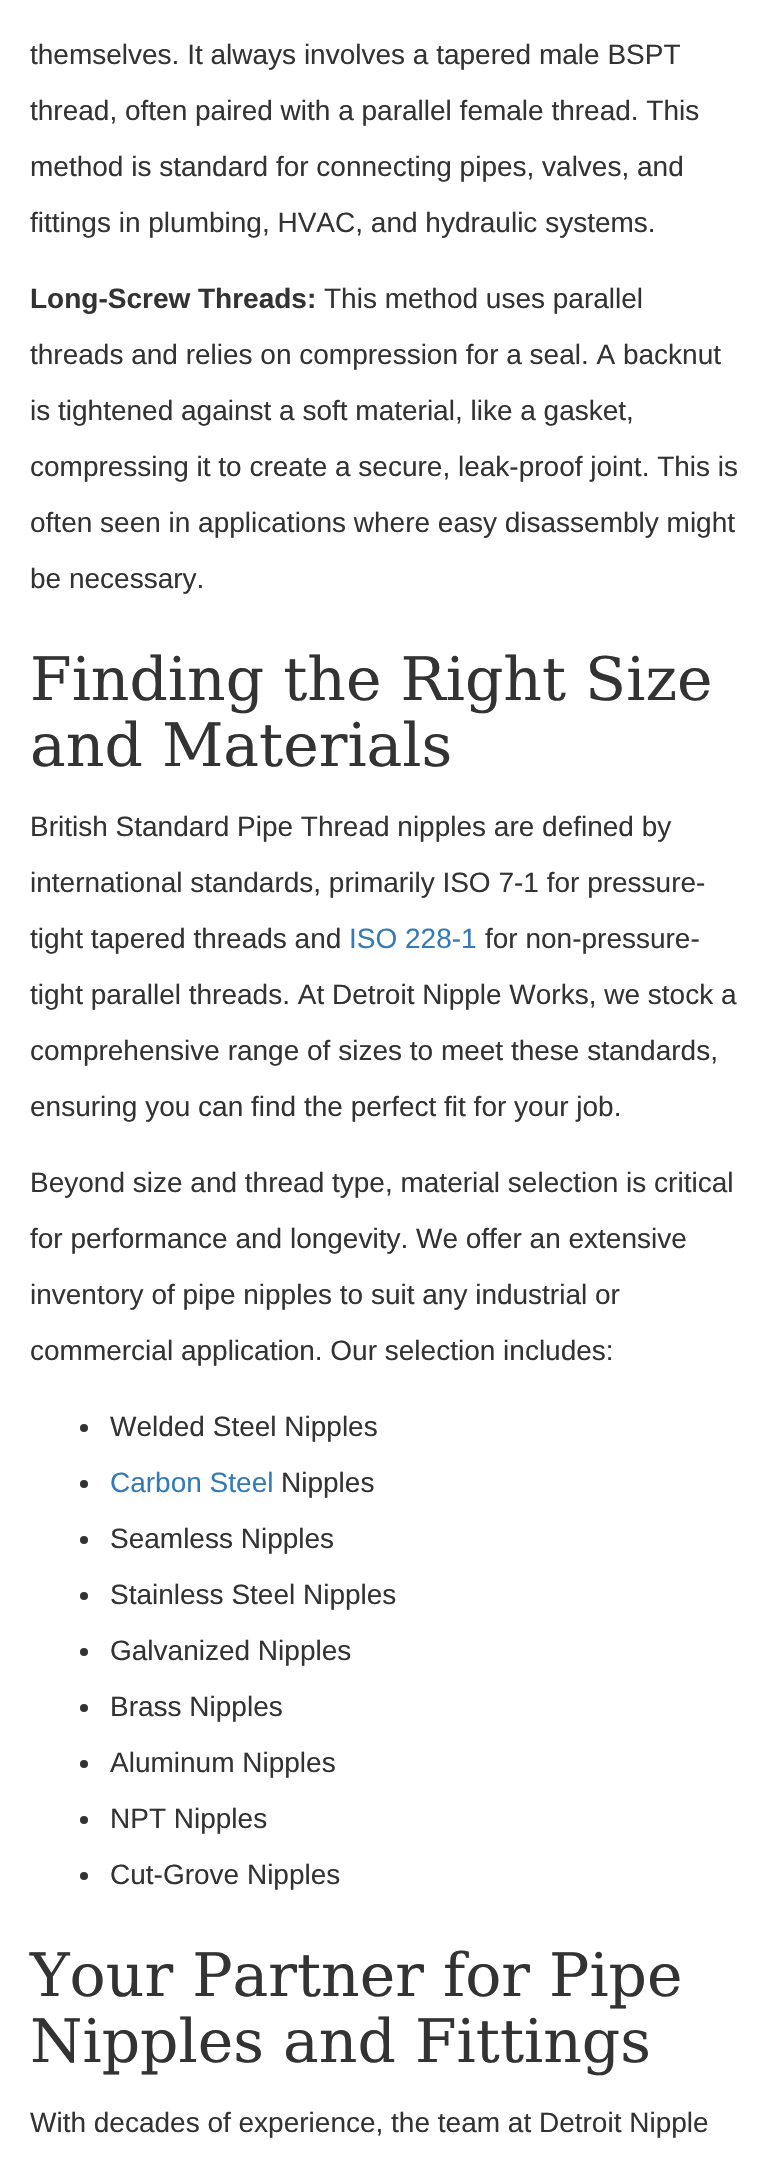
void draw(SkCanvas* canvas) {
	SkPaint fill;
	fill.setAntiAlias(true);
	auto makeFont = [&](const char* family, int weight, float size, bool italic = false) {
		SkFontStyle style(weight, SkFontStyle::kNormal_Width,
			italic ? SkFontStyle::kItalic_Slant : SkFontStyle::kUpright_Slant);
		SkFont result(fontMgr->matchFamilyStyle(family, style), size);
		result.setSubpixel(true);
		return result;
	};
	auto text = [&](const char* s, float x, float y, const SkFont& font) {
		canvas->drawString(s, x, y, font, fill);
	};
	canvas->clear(0xFFFFFFFF);
	fill.setColor(0xFF333333);
	canvas->drawCircle(84, 1428, 4, fill);
	canvas->drawCircle(84, 1484, 4, fill);
	canvas->drawCircle(84, 1540, 4, fill);
	canvas->drawCircle(84, 1596, 4, fill);
	canvas->drawCircle(84, 1652, 4, fill);
	canvas->drawCircle(84, 1708, 4, fill);
	canvas->drawCircle(84, 1764, 4, fill);
	canvas->drawCircle(84, 1820, 4, fill);
	canvas->drawCircle(84, 1876, 4, fill);
	auto font1 = makeFont("Liberation Sans", 400, 28);
	text("themselves. It always involves a tapered male BSPT", 30, 64, font1);
	text("thread, often paired with a parallel female thread. This", 30, 120, font1);
	text("method is standard for connecting pipes, valves, and", 30, 176, font1);
	text("fittings in plumbing, HVAC, and hydraulic systems.", 30, 232, font1);
	auto font2 = makeFont("Liberation Sans", 700, 28);
	text("Long-Screw Threads:", 30, 308, font2);
	text("This method uses parallel", 324, 308, font1);
	text("threads and relies on compression for a seal. A backnut", 30, 364, font1);
	text("is tightened against a soft material, like a gasket,", 30, 420, font1);
	text("compressing it to create a secure, leak-proof joint. This is", 30, 476, font1);
	text("often seen in applications where easy disassembly might", 30, 532, font1);
	text("be necessary.", 30, 588, font1);
	auto font3 = makeFont("DejaVu Serif", 400, 60);
	text("Finding the Right Size", 30, 700, font3);
	text("and Materials", 30, 766, font3);
	text("British Standard Pipe Thread nipples are defined by", 30, 836, font1);
	text("international standards, primarily ISO 7-1 for pressure-", 30, 892, font1);
	text("tight tapered threads and", 30, 948, font1);
	fill.setColor(0xFF337AB7);
	text("ISO 228-1", 349, 948, font1);
	fill.setColor(0xFF333333);
	text("for non-pressure-", 485, 948, font1);
	text("tight parallel threads. At Detroit Nipple Works, we stock a", 30, 1004, font1);
	text("comprehensive range of sizes to meet these standards,", 30, 1060, font1);
	text("ensuring you can find the perfect fit for your job.", 30, 1116, font1);
	text("Beyond size and thread type, material selection is critical", 30, 1192, font1);
	text("for performance and longevity. We offer an extensive", 30, 1248, font1);
	text("inventory of pipe nipples to suit any industrial or", 30, 1304, font1);
	text("commercial application. Our selection includes:", 30, 1360, font1);
	text("Welded Steel Nipples", 110, 1436, font1);
	fill.setColor(0xFF337AB7);
	text("Carbon Steel", 110, 1492, font1);
	fill.setColor(0xFF333333);
	text("Nipples", 281, 1492, font1);
	text("Seamless Nipples", 110, 1548, font1);
	text("Stainless Steel Nipples", 110, 1604, font1);
	text("Galvanized Nipples", 110, 1660, font1);
	text("Brass Nipples", 110, 1716, font1);
	text("Aluminum Nipples", 110, 1772, font1);
	text("NPT Nipples", 110, 1828, font1);
	text("Cut-Grove Nipples", 110, 1884, font1);
	text("Your Partner for Pipe", 30, 1996, font3);
	text("Nipples and Fittings", 30, 2062, font3);
	text("With decades of experience, the team at Detroit Nipple", 30, 2132, font1);
}
